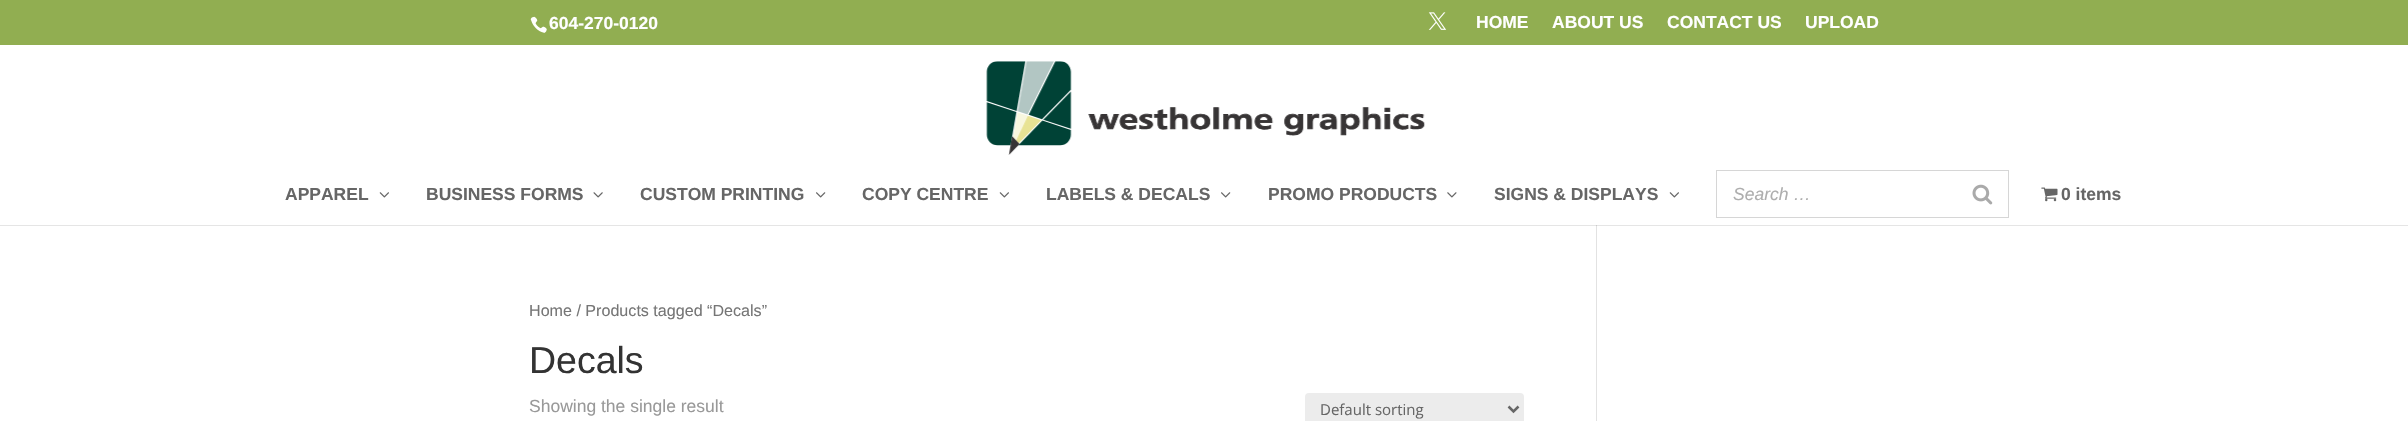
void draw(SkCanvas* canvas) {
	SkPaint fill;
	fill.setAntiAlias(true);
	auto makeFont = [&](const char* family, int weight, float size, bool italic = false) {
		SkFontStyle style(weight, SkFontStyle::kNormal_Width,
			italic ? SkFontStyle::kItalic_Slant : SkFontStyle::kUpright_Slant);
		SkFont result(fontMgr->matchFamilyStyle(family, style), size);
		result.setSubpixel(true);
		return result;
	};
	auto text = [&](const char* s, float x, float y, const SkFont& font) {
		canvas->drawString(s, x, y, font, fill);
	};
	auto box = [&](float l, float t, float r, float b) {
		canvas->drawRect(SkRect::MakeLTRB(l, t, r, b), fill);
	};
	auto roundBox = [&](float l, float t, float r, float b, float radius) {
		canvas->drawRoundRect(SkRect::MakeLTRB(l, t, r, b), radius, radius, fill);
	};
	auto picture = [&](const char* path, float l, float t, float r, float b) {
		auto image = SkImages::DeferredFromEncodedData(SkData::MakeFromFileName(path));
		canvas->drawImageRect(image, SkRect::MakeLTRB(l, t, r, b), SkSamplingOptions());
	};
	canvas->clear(0xFFFFFFFF);
	fill.setColor(0xFF91AE51);
	box(0, 0, 2408, 45);
	picture("image0.png", 530, 16, 547, 33);
	picture("image1.png", 1428, 12, 1447, 30);
	fill.setColor(0xFFE2E2E2);
	box(1596, 224, 1597, 421);
	fill.setColor(0x1A000000);
	canvas->drawPath(SkPathBuilder().moveTo(0, 225).lineTo(0, 226).lineTo(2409, 226).lineTo(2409, 46).lineTo(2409, 225).close().detach(), fill);
	fill.setColor(0xFFFFFFFF);
	box(1596, 224, 1597, 225);
	picture("image2.png", 986, 61, 1425, 155);
	picture("image3.png", 379, 192, 389, 198);
	picture("image4.png", 593, 192, 603, 198);
	picture("image5.png", 816, 192, 826, 198);
	picture("image3.png", 999, 192, 1009, 198);
	picture("image5.png", 1221, 192, 1231, 198);
	picture("image6.png", 1447, 192, 1457, 198);
	picture("image3.png", 1669, 192, 1679, 198);
	fill.setStyle(SkPaint::kStroke_Style);
	fill.setStrokeWidth(1);
	fill.setColor(0xFFD6D6D6);
	canvas->drawRect(SkRect::MakeLTRB(1716.5f, 170.5f, 2008.5f, 217.5f), fill);
	picture("image7.png", 1972, 184, 1993, 205);
	picture("image8.png", 2041, 187, 2058, 202);
	fill.setStyle(SkPaint::kFill_Style);
	fill.setColor(0xFFECECEC);
	roundBox(1305, 393, 1524, 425, 4);
	fill.setStyle(SkPaint::kStroke_Style);
	fill.setStrokeWidth(2.5f);
	fill.setColor(0xFF666666);
	canvas->drawPath(SkPathBuilder().moveTo(1508.5f, 406.5f).lineTo(1513.5f, 411.5f).lineTo(1518.5f, 406.5f).detach(), fill);
	auto font1 = makeFont("Liberation Sans", 700, 17.5f);
	fill.setStyle(SkPaint::kFill_Style);
	fill.setColor(0xFFFFFFFF);
	text("604-270-0120", 549, 29, font1);
	text("HOME", 1476, 28, font1);
	text("ABOUT US", 1552, 28, font1);
	text("CONTACT US", 1667, 28, font1);
	text("UPLOAD", 1805, 28, font1);
	fill.setColor(0xFF666666);
	text("APPAREL", 285, 200, font1);
	text("BUSINESS FORMS", 426, 200, font1);
	text("CUSTOM PRINTING", 640, 200, font1);
	text("COPY CENTRE", 862, 200, font1);
	text("LABELS & DECALS", 1046, 200, font1);
	text("PROMO PRODUCTS", 1268, 200, font1);
	text("SIGNS & DISPLAYS", 1494, 200, font1);
	auto font2 = makeFont("Liberation Sans", 400, 17.5f, true);
	fill.setColor(0xFFAEAEAE);
	text("Search …", 1733, 200, font2);
	fill.setColor(0xFF666666);
	text("0 items", 2061, 200, font1);
	auto font3 = makeFont("Liberation Sans", 400, 16.1f);
	fill.setColor(0xFF767676);
	text("Home / Products tagged “Decals”", 529, 316, font3);
	auto font4 = makeFont("Liberation Sans", 400, 37.5f);
	fill.setColor(0xFF333333);
	text("Decals", 529, 373, font4);
	auto font5 = makeFont("Liberation Sans", 400, 17.5f);
	fill.setColor(0xFF999999);
	text("Showing the single result", 529, 412, font5);
	auto font6 = makeFont("Open Sans", 400, 15);
	fill.setColor(0xFF666666);
	text("Default sorting", 1320, 415, font6);
}
